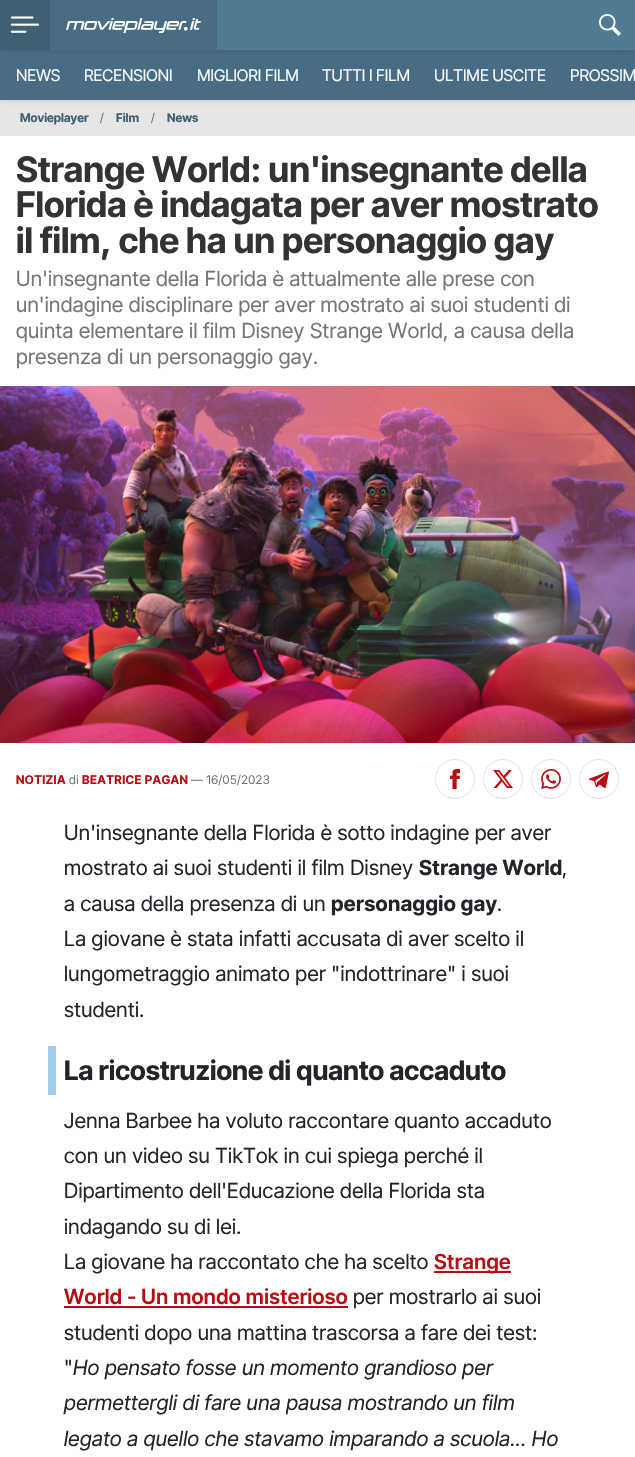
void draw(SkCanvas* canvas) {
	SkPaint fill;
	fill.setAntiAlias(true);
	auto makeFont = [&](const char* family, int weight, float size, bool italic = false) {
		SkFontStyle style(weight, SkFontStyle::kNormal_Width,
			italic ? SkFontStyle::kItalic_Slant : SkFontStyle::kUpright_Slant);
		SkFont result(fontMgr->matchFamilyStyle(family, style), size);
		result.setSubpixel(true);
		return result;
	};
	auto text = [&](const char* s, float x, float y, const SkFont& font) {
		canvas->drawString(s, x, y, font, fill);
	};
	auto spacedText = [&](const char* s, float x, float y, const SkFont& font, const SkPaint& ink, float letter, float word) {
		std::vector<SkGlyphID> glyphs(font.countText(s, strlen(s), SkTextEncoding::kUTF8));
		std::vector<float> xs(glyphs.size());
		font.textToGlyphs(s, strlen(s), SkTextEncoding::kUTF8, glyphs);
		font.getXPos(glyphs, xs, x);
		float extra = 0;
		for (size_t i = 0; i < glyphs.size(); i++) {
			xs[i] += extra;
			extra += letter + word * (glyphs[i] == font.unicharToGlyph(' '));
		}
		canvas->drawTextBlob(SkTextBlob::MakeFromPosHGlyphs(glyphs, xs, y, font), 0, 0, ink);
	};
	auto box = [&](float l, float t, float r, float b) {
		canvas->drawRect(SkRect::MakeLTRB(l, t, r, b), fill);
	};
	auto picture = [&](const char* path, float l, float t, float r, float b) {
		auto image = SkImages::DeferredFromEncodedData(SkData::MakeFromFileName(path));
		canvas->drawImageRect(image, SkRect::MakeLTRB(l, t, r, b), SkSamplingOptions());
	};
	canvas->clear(0xFFFFFFFF);
	fill.setColor(0xFFE6E6E6);
	box(0, 100, 635, 136);
	fill.setColor(0x12000000);
	fill.setMaskFilter(SkMaskFilter::MakeBlur(kNormal_SkBlurStyle, 2));
	canvas->drawRect(SkRect::MakeLTRB(0, 2, 635, 102), fill);
	fill.setMaskFilter(nullptr);
	fill.setColor(0xFF486C84);
	box(20, 50, 615, 100);
	{
		const SkColor colors[] = {0xFF486C84, 0xFF2D4453};
		const float stops[] = {0, 1};
		const SkPoint ends[] = {{615, 75}, {635, 75}};
		fill.setShader(SkGradientShader::MakeLinear(ends, colors, stops, 2, SkTileMode::kClamp));
		fill.setAlpha(255);
	}
	box(615, 50, 623, 100);
	{
		const SkColor colors[] = {0xFF2D4453, 0xFF486C84};
		const float stops[] = {0, 1};
		const SkPoint ends[] = {{0, 75}, {20, 75}};
		fill.setShader(SkGradientShader::MakeLinear(ends, colors, stops, 2, SkTileMode::kClamp));
		fill.setAlpha(255);
	}
	box(12, 50, 20, 100);
	{
		const SkColor colors[] = {0x00486C84, 0xFF486C84};
		const float stops[] = {0, 0.7f};
		const SkPoint ends[] = {{595, 75}, {635, 75}};
		fill.setShader(SkGradientShader::MakeLinear(ends, colors, stops, 2, SkTileMode::kClamp));
		fill.setAlpha(255);
	}
	box(616, 50, 635, 100);
	{
		const SkColor colors[] = {0xFF486C84, 0x00486C84};
		const float stops[] = {0.3f, 1};
		const SkPoint ends[] = {{0, 75}, {40, 75}};
		fill.setShader(SkGradientShader::MakeLinear(ends, colors, stops, 2, SkTileMode::kClamp));
		fill.setAlpha(255);
	}
	box(0, 50, 19, 100);
	fill.setShader(nullptr);
	fill.setColor(0x12000000);
	fill.setMaskFilter(SkMaskFilter::MakeBlur(kNormal_SkBlurStyle, 2));
	canvas->drawRect(SkRect::MakeLTRB(0, 2, 635, 52), fill);
	fill.setMaskFilter(nullptr);
	fill.setColor(0xFF517A94);
	box(217, 0, 635, 50);
	fill.setColor(0xFF3F5F73);
	box(0, 0, 50, 50);
	picture("image0.png", 10, 16, 40, 33);
	fill.setColor(0xFF486C84);
	box(50, 0, 217, 50);
	picture("image1.png", 66, 18, 201, 33);
	picture("image2.png", 599, 14, 621, 36);
	picture("image3.png", 0, 386, 635, 743);
	fill.setStyle(SkPaint::kStroke_Style);
	fill.setStrokeWidth(1);
	fill.setColor(0xFFDEE2E6);
	canvas->drawCircle(455, 779, 19.5f, fill);
	picture("image4.png", 450, 769, 460, 789);
	canvas->drawCircle(503, 779, 19.5f, fill);
	picture("image5.png", 493, 770, 513, 788);
	canvas->drawCircle(551, 779, 19.5f, fill);
	picture("image6.png", 541, 769, 561, 789);
	canvas->drawCircle(599, 779, 19.5f, fill);
	picture("image7.png", 589, 771, 609, 789);
	fill.setStyle(SkPaint::kFill_Style);
	fill.setColor(0xFFA1CDED);
	box(48, 1046, 56, 1095);
	fill.setColor(0xFFB80C11);
	box(434, 1271, 511, 1273);
	box(64, 1306, 348, 1308);
	auto font1 = makeFont("Inter Tight", 400, 16);
	fill.setColor(0xFFF8F9FA);
	text("NEWS", 16, 81, font1);
	text("RECENSIONI", 84, 81, font1);
	text("MIGLIORI FILM", 197, 81, font1);
	text("TUTTI I FILM", 322, 81, font1);
	text("ULTIME USCITE", 434, 81, font1);
	text("PROSSIM", 570, 81, font1);
	auto font2 = makeFont("Inter Tight", 700, 12);
	fill.setColor(0xFF3F5F73);
	text("Movieplayer", 20, 122, font2);
	auto font3 = makeFont("Inter Tight", 400, 12);
	fill.setColor(0xFF6C757D);
	text("/", 100, 122, font3);
	fill.setColor(0xFF3F5F73);
	text("Film", 116, 122, font2);
	fill.setColor(0xFF6C757D);
	text("/", 151, 122, font3);
	fill.setColor(0xFF3F5F73);
	text("News", 167, 122, font2);
	auto font4 = makeFont("Inter Tight", 700, 35.25f);
	fill.setColor(0xFF333333);
	text("Strange World: un'insegnante della", 16, 182, font4);
	text("Florida è indagata per aver mostrato", 16, 217, font4);
	text("il film, che ha un personaggio gay", 16, 253, font4);
	auto font5 = makeFont("Inter Tight", 400, 20.8f);
	fill.setColor(0xFF757575);
	spacedText("Un'insegnante della Florida è attualmente alle prese con", 16, 286, font5, fill, 0.4f, 0);
	spacedText("un'indagine disciplinare per aver mostrato ai suoi studenti di", 16, 312, font5, fill, 0.4f, 0);
	spacedText("quinta elementare il film Disney Strange World, a causa della", 16, 338, font5, fill, 0.4f, 0);
	spacedText("presenza di un personaggio gay.", 16, 364, font5, fill, 0.4f, 0);
	fill.setColor(0xFFB80C11);
	spacedText("NOTIZIA", 16, 784, font2, fill, 0.4f, 0);
	fill.setColor(0xFF6C757D);
	spacedText("di", 69, 784, font3, fill, 0.4f, 0);
	fill.setColor(0xFFB80C11);
	spacedText("BEATRICE PAGAN", 82, 784, font2, fill, 0.4f, 0);
	fill.setColor(0xFF6C757D);
	spacedText("— 16/05/2023", 191, 784, font3, fill, 0.4f, 0);
	fill.setColor(0xFF212529);
	spacedText("Un'insegnante della Florida è sotto indagine per aver", 64, 840, font5, fill, 0.4f, 0);
	spacedText("mostrato ai suoi studenti il film Disney", 64, 875, font5, fill, 0.4f, 0);
	auto font6 = makeFont("Inter Tight", 700, 20.8f);
	spacedText("Strange World", 419, 875, font6, fill, 0.4f, 0);
	spacedText(",", 562, 875, font5, fill, 0.4f, 0);
	spacedText("a causa della presenza di un", 64, 911, font5, fill, 0.4f, 0);
	spacedText("personaggio gay", 331, 911, font6, fill, 0.4f, 0);
	spacedText(".", 497, 911, font5, fill, 0.4f, 0);
	spacedText("La giovane è stata infatti accusata di aver scelto il", 64, 946, font5, fill, 0.4f, 0);
	spacedText("lungometraggio animato per \"indottrinare\" i suoi", 64, 981, font5, fill, 0.4f, 0);
	spacedText("studenti.", 64, 1017, font5, fill, 0.4f, 0);
	auto font7 = makeFont("Inter Tight", 700, 26.9f);
	text("La ricostruzione di quanto accaduto", 64, 1080, font7);
	spacedText("Jenna Barbee ha voluto raccontare quanto accaduto", 64, 1128, font5, fill, 0.4f, 0);
	spacedText("con un video su TikTok in cui spiega perché il", 64, 1163, font5, fill, 0.4f, 0);
	spacedText("Dipartimento dell'Educazione della Florida sta", 64, 1198, font5, fill, 0.4f, 0);
	spacedText("indagando su di lei.", 64, 1234, font5, fill, 0.4f, 0);
	spacedText("La giovane ha raccontato che ha scelto", 64, 1269, font5, fill, 0.4f, 0);
	auto font8 = makeFont("Inter Tight", 600, 20.8f);
	fill.setColor(0xFFB80C11);
	spacedText("Strange", 434, 1269, font8, fill, 0.4f, 0);
	spacedText("World - Un mondo misterioso", 64, 1304, font8, fill, 0.4f, 0);
	fill.setColor(0xFF212529);
	spacedText("per mostrarlo ai suoi", 353, 1304, font5, fill, 0.4f, 0);
	spacedText("studenti dopo una mattina trascorsa a fare dei test:", 64, 1340, font5, fill, 0.4f, 0);
	spacedText("\"", 64, 1375, font5, fill, 0.4f, 0);
	auto font9 = makeFont("Inter Tight", 400, 20.8f, true);
	spacedText("Ho pensato fosse un momento grandioso per", 73, 1375, font9, fill, 0.4f, 0);
	spacedText("permettergli di fare una pausa mostrando un film", 64, 1410, font9, fill, 0.4f, 0);
	spacedText("legato a quello che stavamo imparando a scuola... Ho", 64, 1446, font9, fill, 0.4f, 0);
}
